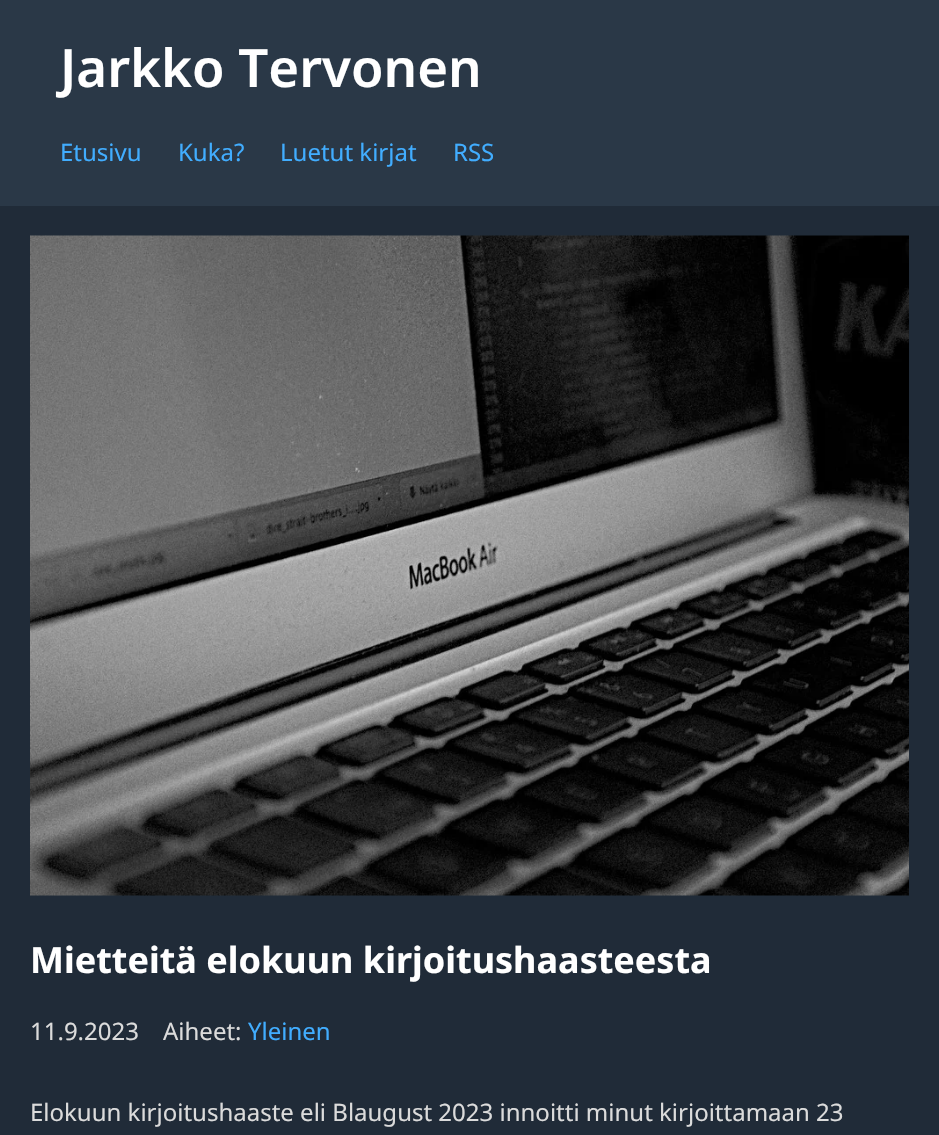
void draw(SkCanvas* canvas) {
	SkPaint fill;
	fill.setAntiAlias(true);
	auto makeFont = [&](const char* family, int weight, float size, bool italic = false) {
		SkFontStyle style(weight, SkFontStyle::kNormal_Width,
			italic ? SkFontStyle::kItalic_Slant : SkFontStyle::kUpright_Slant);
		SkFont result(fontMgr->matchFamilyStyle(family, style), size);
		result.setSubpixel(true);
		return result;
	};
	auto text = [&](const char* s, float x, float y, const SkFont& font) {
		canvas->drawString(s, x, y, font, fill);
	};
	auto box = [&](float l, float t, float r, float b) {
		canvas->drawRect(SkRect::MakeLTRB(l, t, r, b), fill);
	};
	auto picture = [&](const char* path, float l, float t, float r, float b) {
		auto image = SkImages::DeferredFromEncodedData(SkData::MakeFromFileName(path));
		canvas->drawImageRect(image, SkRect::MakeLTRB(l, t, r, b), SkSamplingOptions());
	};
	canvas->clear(0xFF202B38);
	fill.setColor(0xFF2A3847);
	box(0, 0, 939, 206);
	picture("image0.png", 30, 235, 909, 896);
	auto font1 = makeFont("Noto Sans", 600, 52.75f);
	fill.setColor(0xFFFFFFFF);
	text("Jarkko Tervonen", 60, 87, font1);
	auto font2 = makeFont("Noto Sans", 400, 24);
	fill.setColor(0xFF41ADFF);
	text("Etusivu", 60, 161, font2);
	text("Kuka?", 178, 161, font2);
	text("Luetut kirjat", 280, 161, font2);
	text("RSS", 453, 161, font2);
	auto font3 = makeFont("Noto Sans", 700, 36);
	fill.setColor(0xFFFFFFFF);
	text("Mietteitä elokuun kirjoitushaasteesta", 30, 973, font3);
	fill.setColor(0xFFDBDBDB);
	text("11.9.2023", 30, 1040, font2);
	text("Aiheet:", 163, 1040, font2);
	fill.setColor(0xFF41ADFF);
	text("Yleinen", 248, 1040, font2);
	fill.setColor(0xFFDBDBDB);
	text("Elokuun kirjoitushaaste eli Blaugust 2023 innoitti minut kirjoittamaan 23", 30, 1121, font2);
}
